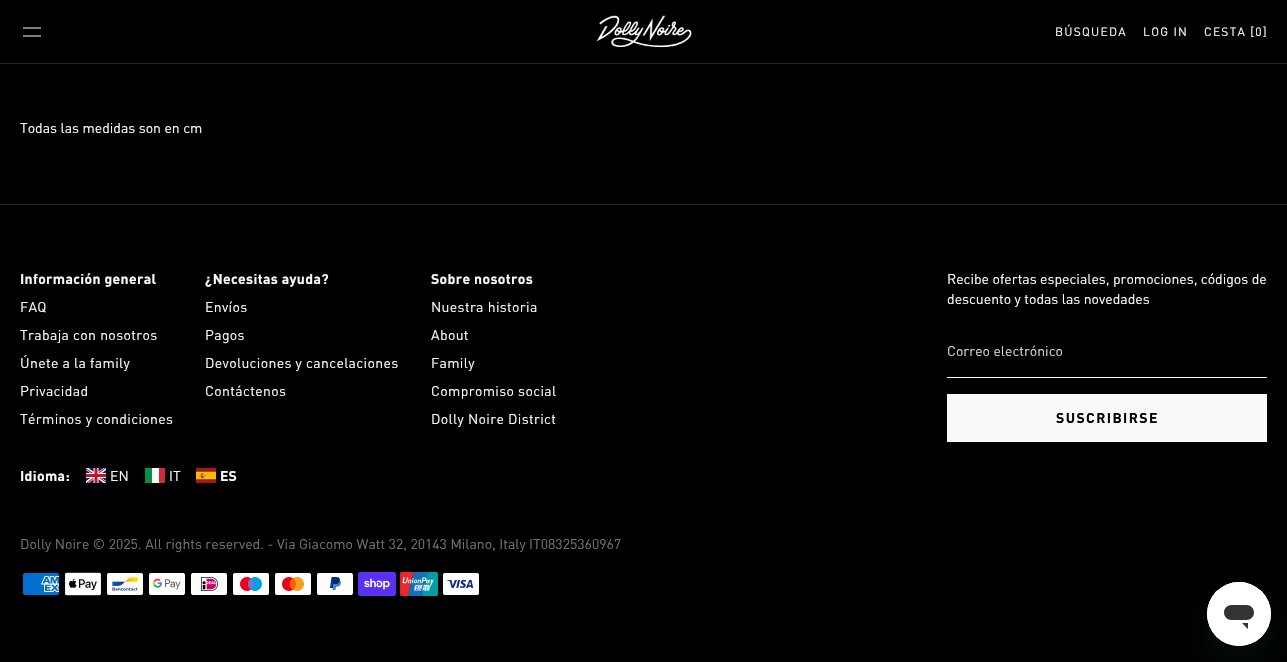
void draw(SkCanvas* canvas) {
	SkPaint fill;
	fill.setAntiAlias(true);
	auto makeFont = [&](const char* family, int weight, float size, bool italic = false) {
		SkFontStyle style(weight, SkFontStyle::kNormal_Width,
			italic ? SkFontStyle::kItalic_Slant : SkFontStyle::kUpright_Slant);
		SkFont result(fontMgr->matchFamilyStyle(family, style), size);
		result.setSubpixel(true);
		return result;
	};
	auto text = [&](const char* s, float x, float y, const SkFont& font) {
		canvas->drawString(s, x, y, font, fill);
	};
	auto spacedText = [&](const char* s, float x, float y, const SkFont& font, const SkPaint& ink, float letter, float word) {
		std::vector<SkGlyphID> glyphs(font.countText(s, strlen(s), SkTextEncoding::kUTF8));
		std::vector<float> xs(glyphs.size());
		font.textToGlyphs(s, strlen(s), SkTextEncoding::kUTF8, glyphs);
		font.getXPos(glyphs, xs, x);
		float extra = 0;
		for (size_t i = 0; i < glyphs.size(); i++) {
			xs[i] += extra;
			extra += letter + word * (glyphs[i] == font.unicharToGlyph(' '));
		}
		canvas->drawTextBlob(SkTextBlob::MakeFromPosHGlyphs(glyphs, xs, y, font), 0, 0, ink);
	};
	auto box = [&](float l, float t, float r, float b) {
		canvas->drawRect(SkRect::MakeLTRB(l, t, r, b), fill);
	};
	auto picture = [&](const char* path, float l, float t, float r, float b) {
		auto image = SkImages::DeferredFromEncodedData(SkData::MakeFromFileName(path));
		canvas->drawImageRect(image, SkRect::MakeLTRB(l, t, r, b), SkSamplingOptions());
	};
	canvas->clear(0xFF000000);
	fill.setColor(0xFF27272A);
	box(0, 63, 1287, 64);
	fill.setStyle(SkPaint::kStroke_Style);
	fill.setStrokeWidth(1);
	fill.setColor(0xFFFAFAFA);
	canvas->drawPath(SkPathBuilder().moveTo(23, 28).lineTo(41, 28).moveTo(23, 36).lineTo(41, 36).detach(), fill);
	picture("image0.png", 596, 15, 692, 48);
	fill.setStyle(SkPaint::kFill_Style);
	fill.setColor(0xFF27272A);
	box(0, 204, 1287, 205);
	fill.setColor(0xFFFFFFFF);
	box(947, 377, 1267, 378);
	fill.setColor(0xFFFAFAFA);
	box(947, 394, 1267, 442);
	picture("image1.png", 86, 468, 106, 483);
	fill.setColor(0xFFFFFFFF);
	box(152, 468, 159, 483);
	fill.setColor(0xFF009246);
	box(145, 468, 152, 483);
	fill.setColor(0xFFCE2B37);
	box(159, 468, 165, 483);
	picture("image2.png", 196, 468, 216, 483);
	picture("image3.png", 23, 573, 59, 595);
	picture("image4.png", 65, 572, 101, 596);
	picture("image5.png", 107, 573, 143, 595);
	picture("image6.png", 149, 573, 185, 595);
	picture("image7.png", 191, 573, 227, 595);
	picture("image8.png", 233, 573, 269, 595);
	picture("image9.png", 275, 573, 311, 595);
	picture("image10.png", 317, 573, 353, 595);
	picture("image11.png", 358, 572, 396, 596);
	picture("image12.png", 400, 572, 438, 596);
	picture("image13.png", 443, 573, 479, 595);
	fill.setColor(0x2617494D);
	fill.setMaskFilter(SkMaskFilter::MakeBlur(kNormal_SkBlurStyle, 15));
	canvas->drawRoundRect(SkRect::MakeLTRB(1207, 602, 1271, 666), 32, 32, fill);
	fill.setMaskFilter(nullptr);
	picture("image14.png", 1207, 582, 1271, 646);
	auto font1 = makeFont("DIN", 400, 12);
	fill.setColor(0xFFFAFAFA);
	spacedText("BÚSQUEDA", 1055, 36, font1, fill, 1.25f, 0);
	spacedText("LOG IN", 1143, 36, font1, fill, 1.25f, 0);
	spacedText("CESTA [0]", 1204, 36, font1, fill, 1.25f, 0);
	auto font2 = makeFont("DIN", 400, 14);
	text("Todas las medidas son en cm", 20, 133, font2);
	auto font3 = makeFont("DIN", 700, 14);
	spacedText("Información general", 20, 284, font3, fill, 0.35f, 0);
	spacedText("FAQ", 20, 312, font2, fill, 0.35f, 0);
	spacedText("Trabaja con nosotros", 20, 340, font2, fill, 0.35f, 0);
	spacedText("Únete a la family", 20, 368, font2, fill, 0.35f, 0);
	spacedText("Privacidad", 20, 396, font2, fill, 0.35f, 0);
	spacedText("Términos y condiciones", 20, 424, font2, fill, 0.35f, 0);
	spacedText("¿Necesitas ayuda?", 205, 284, font3, fill, 0.35f, 0);
	spacedText("Envíos", 205, 312, font2, fill, 0.35f, 0);
	spacedText("Pagos", 205, 340, font2, fill, 0.35f, 0);
	spacedText("Devoluciones y cancelaciones", 205, 368, font2, fill, 0.35f, 0);
	spacedText("Contáctenos", 205, 396, font2, fill, 0.35f, 0);
	spacedText("Sobre nosotros", 431, 284, font3, fill, 0.35f, 0);
	spacedText("Nuestra historia", 431, 312, font2, fill, 0.35f, 0);
	spacedText("About", 431, 340, font2, fill, 0.35f, 0);
	spacedText("Family", 431, 368, font2, fill, 0.35f, 0);
	spacedText("Compromiso social", 431, 396, font2, fill, 0.35f, 0);
	spacedText("Dolly Noire District", 431, 424, font2, fill, 0.35f, 0);
	text("Recibe ofertas especiales, promociones, códigos de", 947, 284, font2);
	text("descuento y todas las novedades", 947, 304, font2);
	fill.setColor(0xFFD4D4D8);
	text("Correo electrónico", 947, 356, font2);
	fill.setColor(0xFF000000);
	spacedText("SUSCRIBIRSE", 1056, 423, font3, fill, 1.4f, 0);
	fill.setColor(0xFFFAFAFA);
	spacedText("Idioma:", 20, 481, font3, fill, 0.35f, 0);
	text("EN", 110, 481, font2);
	text("IT", 169, 481, font2);
	text("ES", 220, 481, font3);
	fill.setColor(0xFF71717A);
	text("Dolly Noire © 2025. All rights reserved. - Via Giacomo Watt 32, 20143 Milano, Italy IT08325360967", 20, 549, font2);
}
